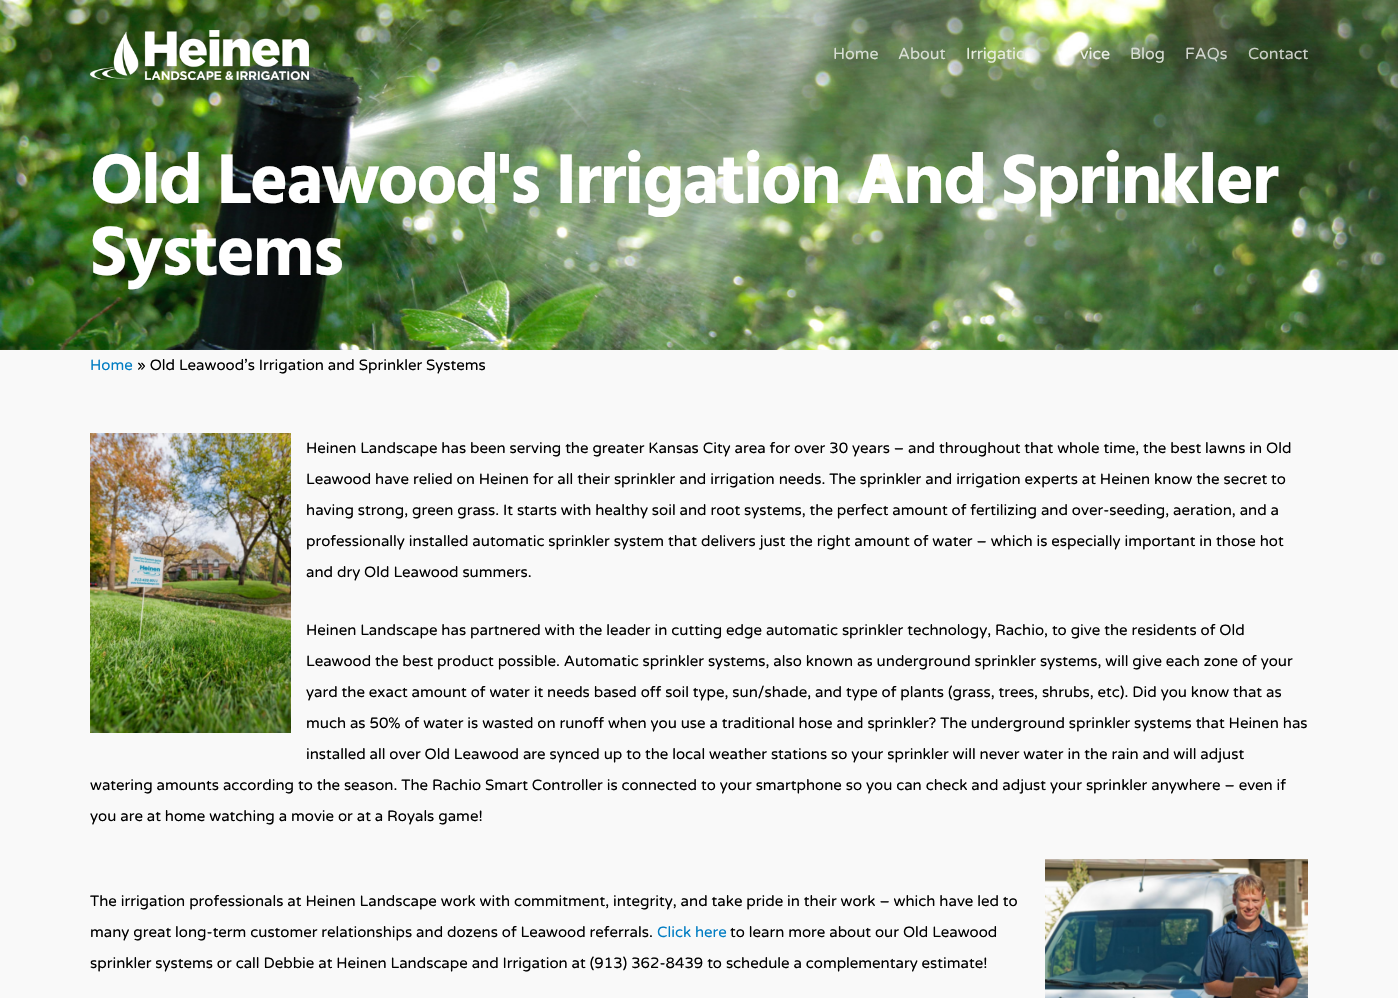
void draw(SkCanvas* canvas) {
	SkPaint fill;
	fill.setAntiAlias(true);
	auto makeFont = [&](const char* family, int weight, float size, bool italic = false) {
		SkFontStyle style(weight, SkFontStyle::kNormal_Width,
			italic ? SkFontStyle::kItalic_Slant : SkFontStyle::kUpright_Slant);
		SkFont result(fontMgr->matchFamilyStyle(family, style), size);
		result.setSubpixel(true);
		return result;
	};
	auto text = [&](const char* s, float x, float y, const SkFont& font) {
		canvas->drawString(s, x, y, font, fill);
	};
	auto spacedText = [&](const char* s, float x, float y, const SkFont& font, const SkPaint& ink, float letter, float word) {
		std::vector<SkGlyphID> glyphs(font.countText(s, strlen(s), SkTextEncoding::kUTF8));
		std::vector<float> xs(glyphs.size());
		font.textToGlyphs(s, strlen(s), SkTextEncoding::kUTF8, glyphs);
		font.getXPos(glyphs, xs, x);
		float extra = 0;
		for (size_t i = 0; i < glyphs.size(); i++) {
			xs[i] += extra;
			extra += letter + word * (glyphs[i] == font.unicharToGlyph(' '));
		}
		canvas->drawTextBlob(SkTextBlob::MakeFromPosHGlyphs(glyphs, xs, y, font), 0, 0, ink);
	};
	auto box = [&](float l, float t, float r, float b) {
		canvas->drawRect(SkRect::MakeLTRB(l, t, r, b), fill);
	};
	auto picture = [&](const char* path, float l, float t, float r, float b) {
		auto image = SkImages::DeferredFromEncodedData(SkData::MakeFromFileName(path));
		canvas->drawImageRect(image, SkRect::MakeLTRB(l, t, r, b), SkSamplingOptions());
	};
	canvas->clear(0xFFFFFFFF);
	picture("image1.png", 0, 0, 1398, 350);
	picture("image0.png", 90, 30, 309, 80);
	fill.setColor(0xFFF9F9F9);
	box(0, 350, 1398, 998);
	picture("image2.png", 90, 433, 291, 733);
	picture("image3.png", 1045, 859, 1308, 998);
	auto font1 = makeFont("Varela Round", 400, 16);
	fill.setColor(0xFFD8DED4);
	text("Home", 833, 59, font1);
	text("About", 898, 59, font1);
	fill.setColor(0xFFE6ECDE);
	text("Irrigatio", 966, 59, font1);
	fill.setColor(0xFFEBEFE8);
	text("vice", 1080, 59, font1);
	fill.setColor(0xFFD8DED4);
	text("Blog", 1130, 59, font1);
	fill.setColor(0xFFD1D5CF);
	text("FAQs", 1185, 59, font1);
	fill.setColor(0xFFCBD0C8);
	text("Contact", 1248, 59, font1);
	auto font2 = makeFont("Hind", 700, 72);
	fill.setColor(0xFFFFFFFF);
	spacedText("Old Leawood's Irrigation And Sprinkler", 90, 203, font2, fill, -2, 0);
	spacedText("Systems", 90, 275, font2, fill, -2, 0);
	auto font3 = makeFont("Varela Round", 400, 15);
	fill.setColor(0xFF017DC3);
	text("Home", 90, 370, font3);
	fill.setColor(0xFF000000);
	text("» Old Leawood’s Irrigation and Sprinkler Systems", 137, 370, font3);
	text("Heinen Landscape has been serving the greater Kansas City area for over 30 years – and throughout that whole time, the best lawns in Old", 306, 453, font3);
	text("Leawood have relied on Heinen for all their sprinkler and irrigation needs. The sprinkler and irrigation experts at Heinen know the secret to", 306, 484, font3);
	text("having strong, green grass. It starts with healthy soil and root systems, the perfect amount of fertilizing and over-seeding, aeration, and a", 306, 515, font3);
	text("professionally installed automatic sprinkler system that delivers just the right amount of water – which is especially important in those hot", 306, 546, font3);
	text("and dry Old Leawood summers.", 306, 577, font3);
	text("Heinen Landscape has partnered with the leader in cutting edge automatic sprinkler technology, Rachio, to give the residents of Old", 306, 635, font3);
	text("Leawood the best product possible. Automatic sprinkler systems, also known as underground sprinkler systems, will give each zone of your", 306, 666, font3);
	text("yard the exact amount of water it needs based off soil type, sun/shade, and type of plants (grass, trees, shrubs, etc). Did you know that as", 306, 697, font3);
	text("much as 50% of water is wasted on runoff when you use a traditional hose and sprinkler? The underground sprinkler systems that Heinen has", 306, 728, font3);
	text("installed all over Old Leawood are synced up to the local weather stations so your sprinkler will never water in the rain and will adjust", 306, 759, font3);
	text("watering amounts according to the season. The Rachio Smart Controller is connected to your smartphone so you can check and adjust your sprinkler anywhere – even if", 90, 790, font3);
	text("you are at home watching a movie or at a Royals game!", 90, 821, font3);
	text("The irrigation professionals at Heinen Landscape work with commitment, integrity, and take pride in their work – which have led to", 90, 906, font3);
	text("many great long-term customer relationships and dozens of Leawood referrals.", 90, 937, font3);
	fill.setColor(0xFF017DC3);
	text("Click here", 657, 937, font3);
	fill.setColor(0xFF000000);
	text("to learn more about our Old Leawood", 730, 937, font3);
	text("sprinkler systems or call Debbie at Heinen Landscape and Irrigation at (913) 362-8439 to schedule a complementary estimate!", 90, 968, font3);
}
